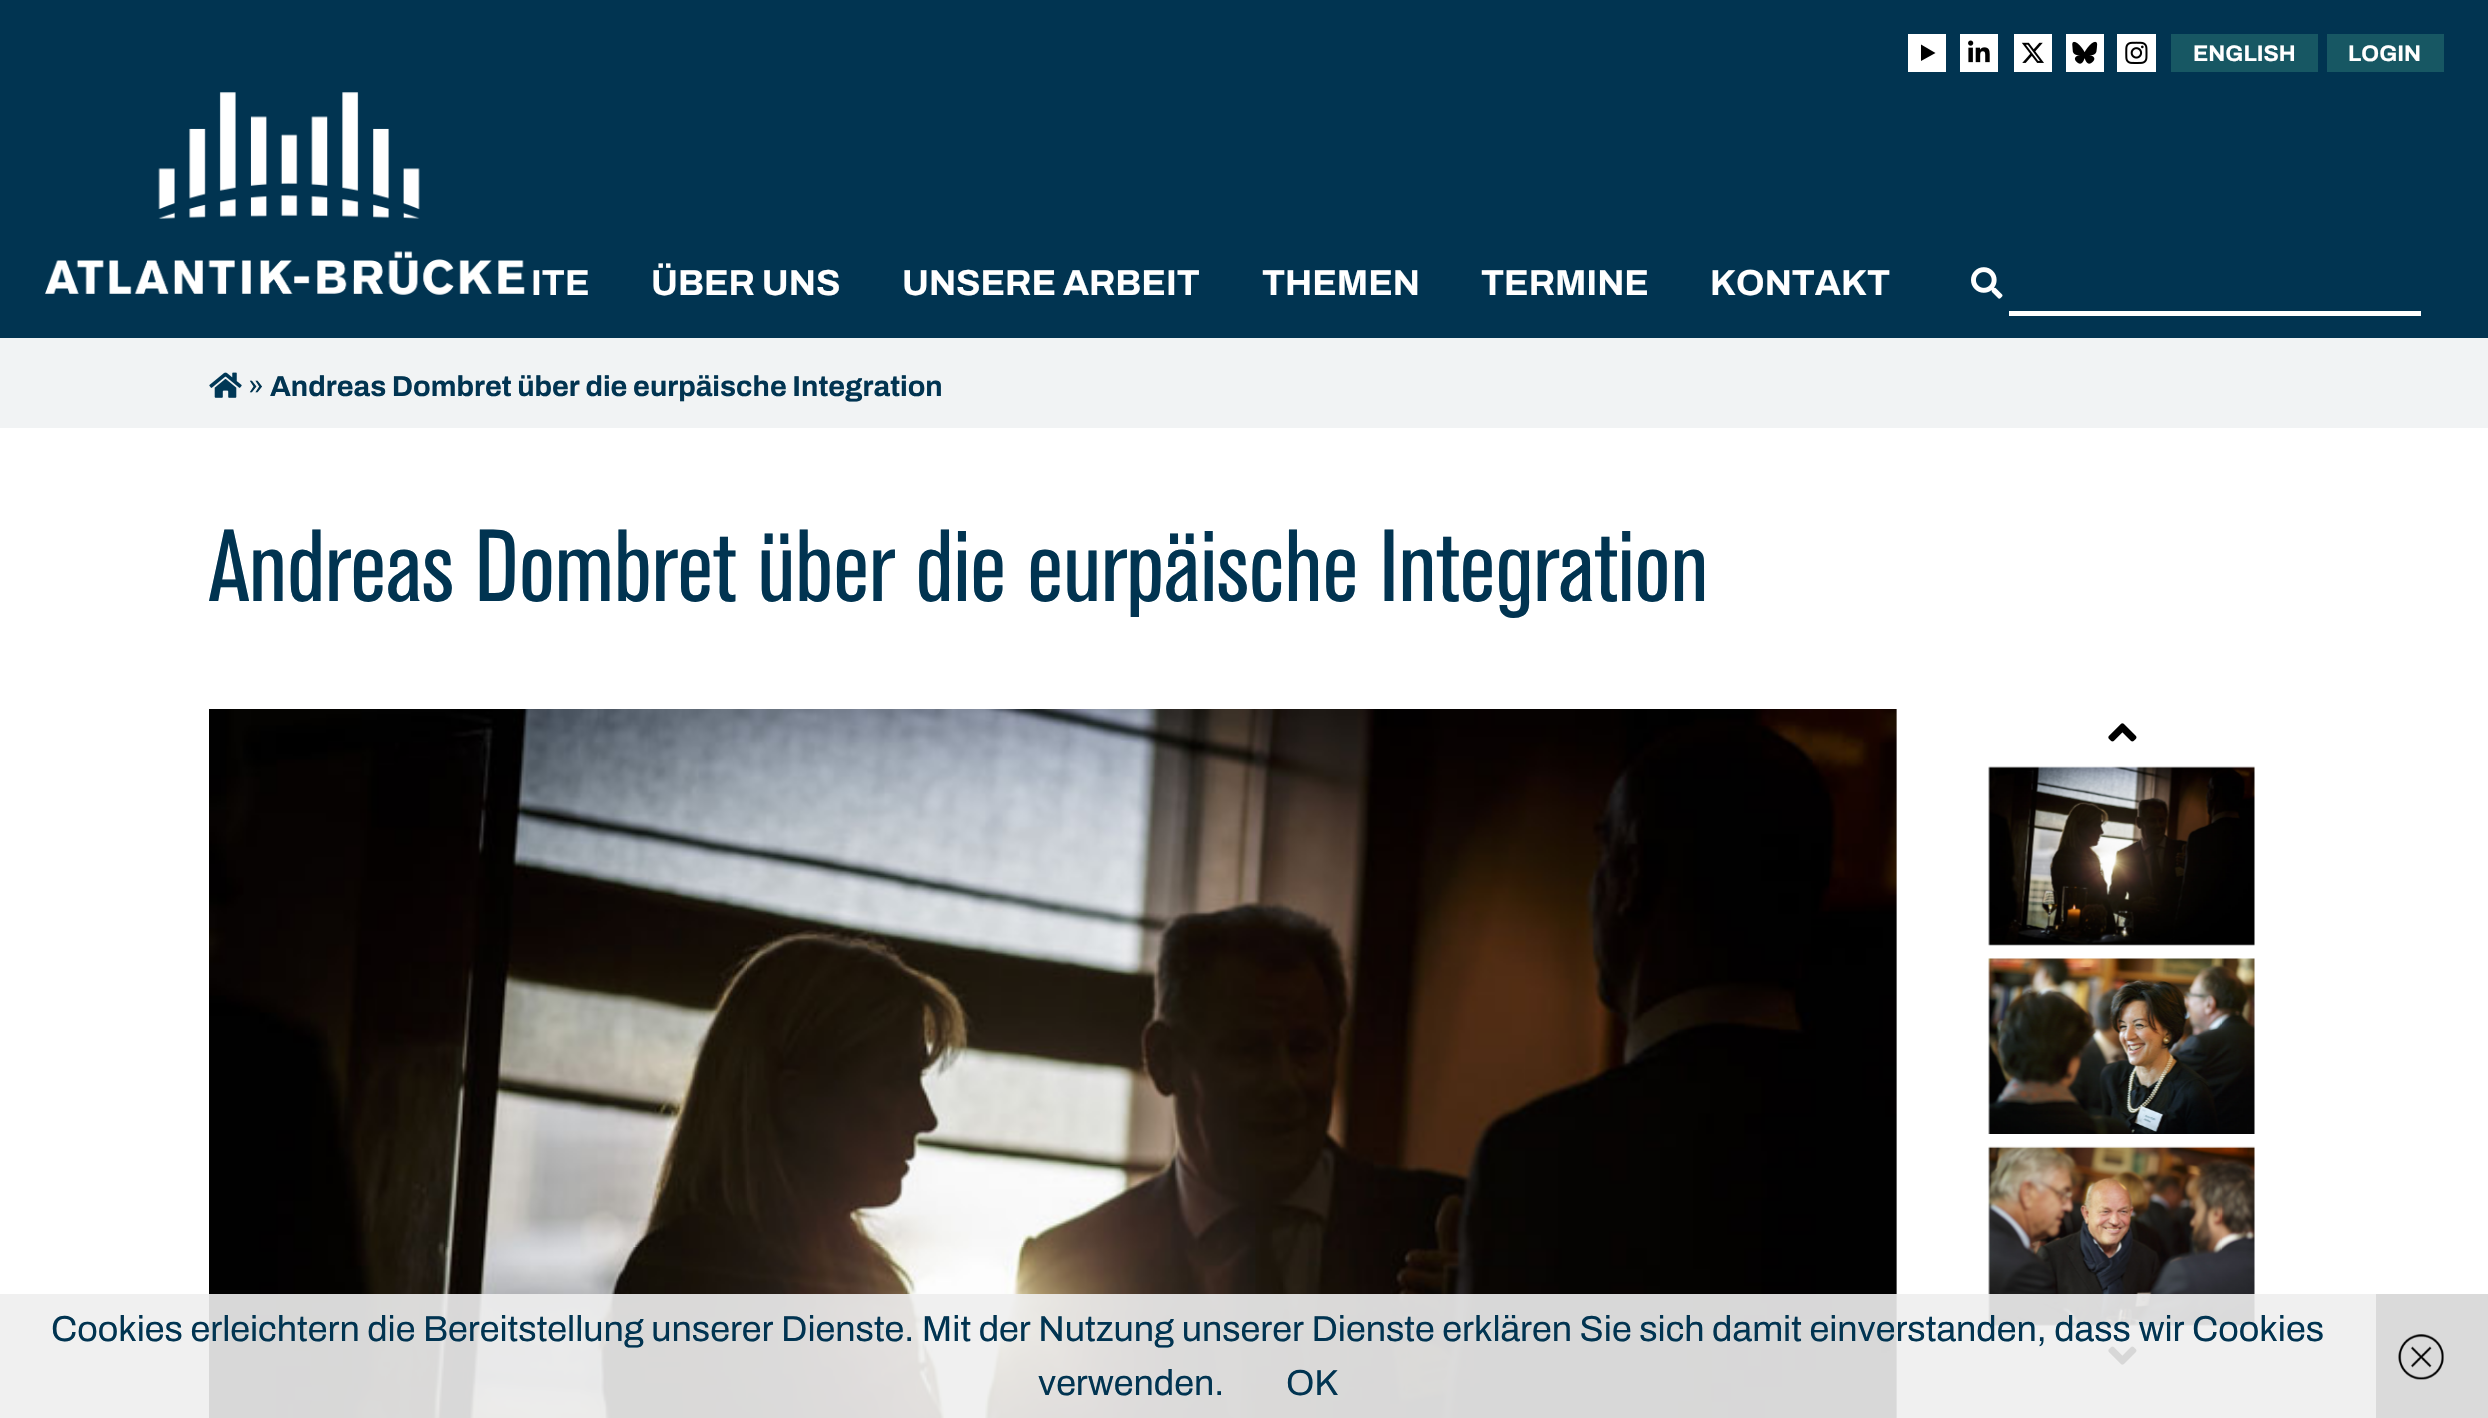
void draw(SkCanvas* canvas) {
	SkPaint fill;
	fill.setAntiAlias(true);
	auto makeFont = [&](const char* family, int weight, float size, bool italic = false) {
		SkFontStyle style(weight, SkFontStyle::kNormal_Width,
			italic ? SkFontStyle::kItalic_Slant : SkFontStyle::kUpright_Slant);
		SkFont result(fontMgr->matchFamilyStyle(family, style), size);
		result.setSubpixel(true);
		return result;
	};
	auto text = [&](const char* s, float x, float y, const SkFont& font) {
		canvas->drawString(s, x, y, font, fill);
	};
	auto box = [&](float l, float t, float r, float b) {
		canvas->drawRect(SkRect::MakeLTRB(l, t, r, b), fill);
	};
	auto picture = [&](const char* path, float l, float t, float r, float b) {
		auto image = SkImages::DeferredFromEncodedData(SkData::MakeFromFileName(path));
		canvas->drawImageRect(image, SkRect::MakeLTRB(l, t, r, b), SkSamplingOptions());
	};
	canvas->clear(0xFFF1F3F4);
	fill.setColor(0xFF013451);
	box(0, 0, 2488, 338);
	fill.setColor(0xFFFFFFFF);
	box(1908, 34, 1946, 72);
	fill.setColor(0xFF000000);
	canvas->drawPath(SkPathBuilder().moveTo(1921, 61).lineTo(1921, 44.5f).lineTo(1935.5f, 53).close().detach(), fill);
	fill.setColor(0xFFFFFFFF);
	box(1960, 34, 1998, 72);
	picture("image0.png", 1968, 40, 1990, 63);
	box(2014, 34, 2052, 72);
	picture("image1.png", 2021, 42, 2044, 63);
	box(2066, 34, 2104, 72);
	picture("image2.png", 2072, 41, 2098, 64);
	box(2117, 34, 2156, 72);
	picture("image3.png", 2125, 41, 2148, 64);
	fill.setColor(0xFF175763);
	box(2171, 34, 2318, 72);
	box(2327, 34, 2444, 72);
	picture("image4.png", 45, 92, 525, 295);
	picture("image5.png", 1971, 267, 2003, 299);
	fill.setColor(0xFFFFFFFF);
	box(2009, 311, 2421, 316);
	picture("image6.png", 209, 372, 242, 398);
	box(0, 428, 2488, 1418);
	picture("image7.png", 209, 709, 1897, 1418);
	picture("image8.png", 2108, 723, 2137, 742);
	picture("image9.png", 1988, 766, 2255, 946);
	picture("image10.png", 1988, 958, 2255, 1134);
	picture("image11.png", 1988, 1146, 2255, 1326);
	picture("image12.png", 2108, 1346, 2137, 1365);
	fill.setColor(0xE6EEEEEE);
	box(0, 1294, 2376, 1418);
	fill.setColor(0xFFDADADA);
	box(2376, 1294, 2488, 1418);
	picture("image13.png", 2398, 1334, 2444, 1380);
	auto font1 = makeFont("Archivo", 700, 22.5f);
	fill.setColor(0xFFFFFFFF);
	text("ENGLISH", 2193, 61, font1);
	text("LOGIN", 2348, 61, font1);
	auto font2 = makeFont("Archivo", 700, 36);
	text("ITE", 531, 295, font2);
	text("ÜBER UNS", 651, 295, font2);
	text("UNSERE ARBEIT", 902, 295, font2);
	text("THEMEN", 1262, 295, font2);
	text("TERMINE", 1481, 295, font2);
	text("KONTAKT", 1710, 295, font2);
	auto font3 = makeFont("Archivo", 400, 28.8f);
	fill.setColor(0xFF013451);
	text("»", 248, 396, font3);
	auto font4 = makeFont("Archivo", 700, 28.8f);
	text("Andreas Dombret über die eurpäische Integration", 270, 396, font4);
	auto font5 = makeFont("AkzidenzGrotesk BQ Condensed", 500, 101.25f);
	text("Andreas Dombret über die eurpäische Integration", 209, 601, font5);
	auto font6 = makeFont("Archivo", 400, 36);
	text("Cookies erleichtern die Bereitstellung unserer Dienste. Mit der Nutzung unserer Dienste erklären Sie sich damit einverstanden, dass wir Cookies", 51, 1341, font6);
	text("verwenden.", 1038, 1395, font6);
	text("OK", 1286, 1395, font6);
}
